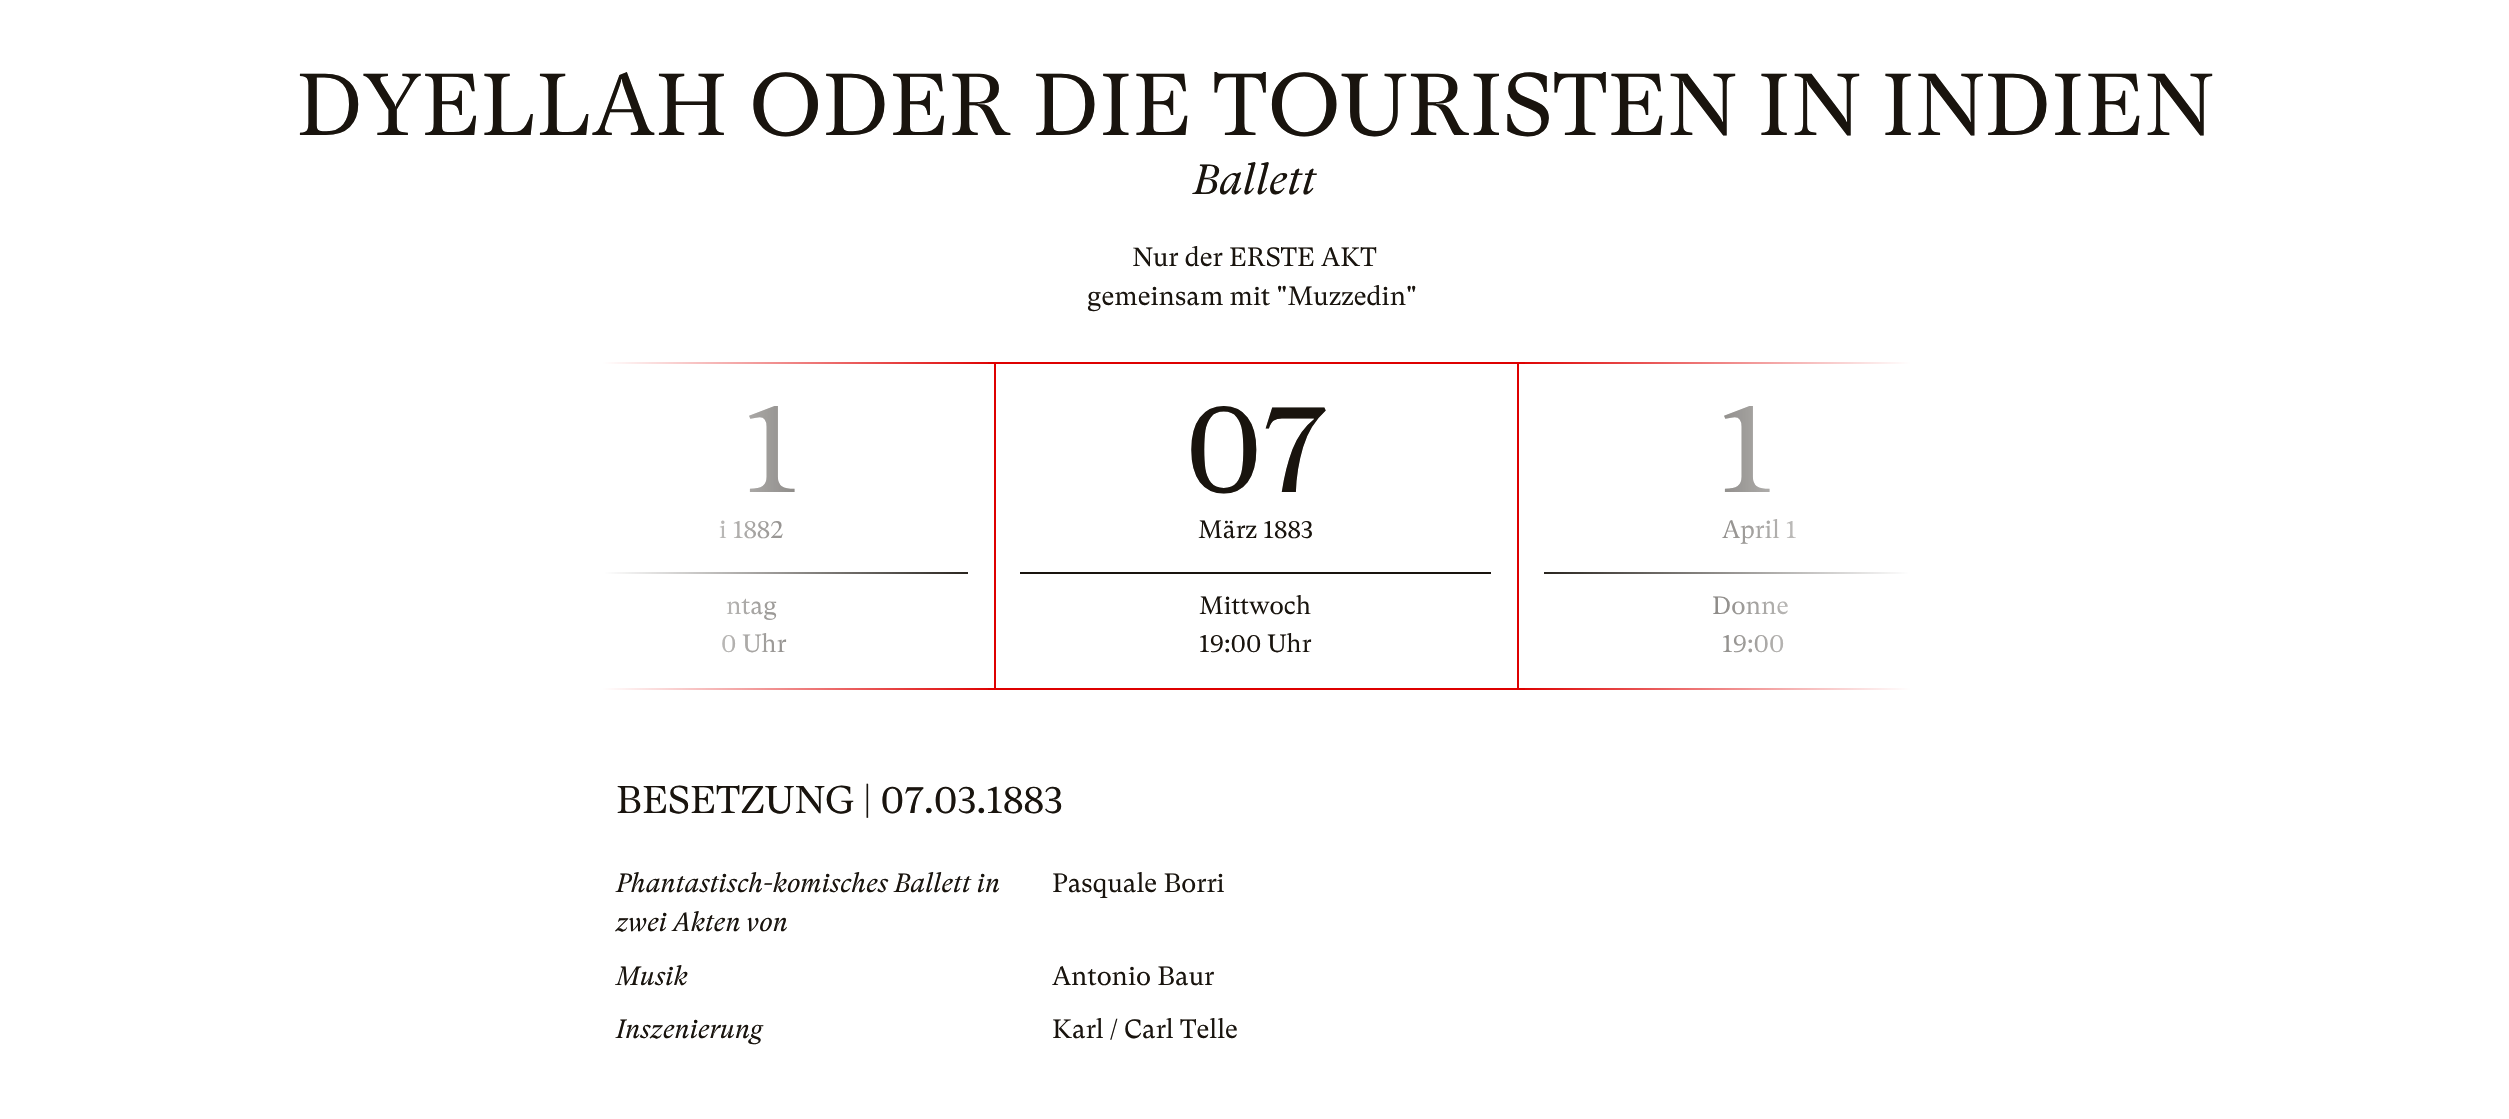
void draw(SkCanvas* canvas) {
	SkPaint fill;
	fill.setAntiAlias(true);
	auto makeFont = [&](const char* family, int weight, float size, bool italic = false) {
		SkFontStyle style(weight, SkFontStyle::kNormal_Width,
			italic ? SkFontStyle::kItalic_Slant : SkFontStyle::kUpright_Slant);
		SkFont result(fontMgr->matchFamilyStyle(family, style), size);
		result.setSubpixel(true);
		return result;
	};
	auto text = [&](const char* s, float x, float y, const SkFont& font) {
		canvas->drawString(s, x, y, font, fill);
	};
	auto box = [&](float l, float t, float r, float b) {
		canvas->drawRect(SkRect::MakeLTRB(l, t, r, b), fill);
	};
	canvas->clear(0xFFFFFFFF);
	fill.setStyle(SkPaint::kStroke_Style);
	fill.setStrokeWidth(2);
	fill.setColor(0xFFDE0000);
	canvas->drawRect(SkRect::MakeLTRB(472, 363, 995, 689), fill);
	fill.setStyle(SkPaint::kFill_Style);
	fill.setColor(0xFF19140E);
	box(605, 572, 968, 574);
	fill.setStyle(SkPaint::kStroke_Style);
	fill.setColor(0xFFDE0000);
	canvas->drawRect(SkRect::MakeLTRB(995, 363, 1518, 689), fill);
	fill.setStyle(SkPaint::kFill_Style);
	fill.setColor(0xFF19140E);
	box(1020, 572, 1491, 574);
	fill.setStyle(SkPaint::kStroke_Style);
	fill.setColor(0xFFDE0000);
	canvas->drawRect(SkRect::MakeLTRB(1518, 363, 2041, 689), fill);
	fill.setStyle(SkPaint::kFill_Style);
	fill.setColor(0xFF19140E);
	box(1544, 572, 1908, 574);
	auto font1 = makeFont("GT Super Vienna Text", 400, 87.5f);
	text("DYELLAH ODER DIE TOURISTEN IN INDIEN", 296, 135, font1);
	auto font2 = makeFont("GT Super Vienna Text", 400, 42, true);
	text("Ballett", 1193, 194, font2);
	auto font3 = makeFont("GT Super Vienna Text", 400, 26.25f);
	text("Nur der ERSTE AKT", 1132, 266, font3);
	text("gemeinsam mit \"Muzzedin\"", 1087, 305, font3);
	auto font4 = makeFont("GT Super Vienna Text", 400, 126);
	text("1", 744, 492, font4);
	auto font5 = makeFont("GT Super Vienna Text", 400, 25);
	text("i 1882", 719, 538, font5);
	text("ntag", 726, 614, font5);
	text("0 Uhr", 721, 652, font5);
	{
		const SkColor colors[] = {0xFFFFFFFF, 0x00FFFFFF};
		const float stops[] = {0.25f, 1};
		const SkPoint ends[] = {{471, 526}, {996, 526}};
		fill.setShader(SkGradientShader::MakeLinear(ends, colors, stops, 2, SkTileMode::kClamp));
		fill.setAlpha(255);
	}
	box(471, 362, 988, 690);
	fill.setShader(nullptr);
	fill.setColor(0xFF19140E);
	text("07", 1185, 492, font4);
	text("März 1883", 1198, 538, font5);
	text("Mittwoch", 1199, 614, font5);
	text("19:00 Uhr", 1199, 652, font5);
	text("1", 1719, 492, font4);
	text("April 1", 1722, 538, font5);
	text("Donne", 1712, 614, font5);
	text("19:00", 1722, 652, font5);
	{
		const SkColor colors[] = {0xFFFFFFFF, 0x00FFFFFF};
		const float stops[] = {0.25f, 1};
		const SkPoint ends[] = {{2042, 526}, {1517, 526}};
		fill.setShader(SkGradientShader::MakeLinear(ends, colors, stops, 2, SkTileMode::kClamp));
		fill.setAlpha(255);
	}
	box(1525, 362, 2042, 690);
	auto font6 = makeFont("GT Super Vienna Text", 400, 38.5f);
	fill.setShader(nullptr);
	fill.setColor(0xFF19140E);
	text("BESETZUNG | 07.03.1883", 616, 813, font6);
	auto font7 = makeFont("GT Super Vienna Text", 400, 26.25f, true);
	text("Phantastisch-komisches Ballett in", 616, 892, font7);
	text("zwei Akten von", 616, 931, font7);
	text("Pasquale Borri", 1052, 892, font3);
	text("Musik", 616, 985, font7);
	text("Antonio Baur", 1052, 985, font3);
	text("Inszenierung", 616, 1038, font7);
	text("Karl / Carl Telle", 1052, 1038, font3);
}
